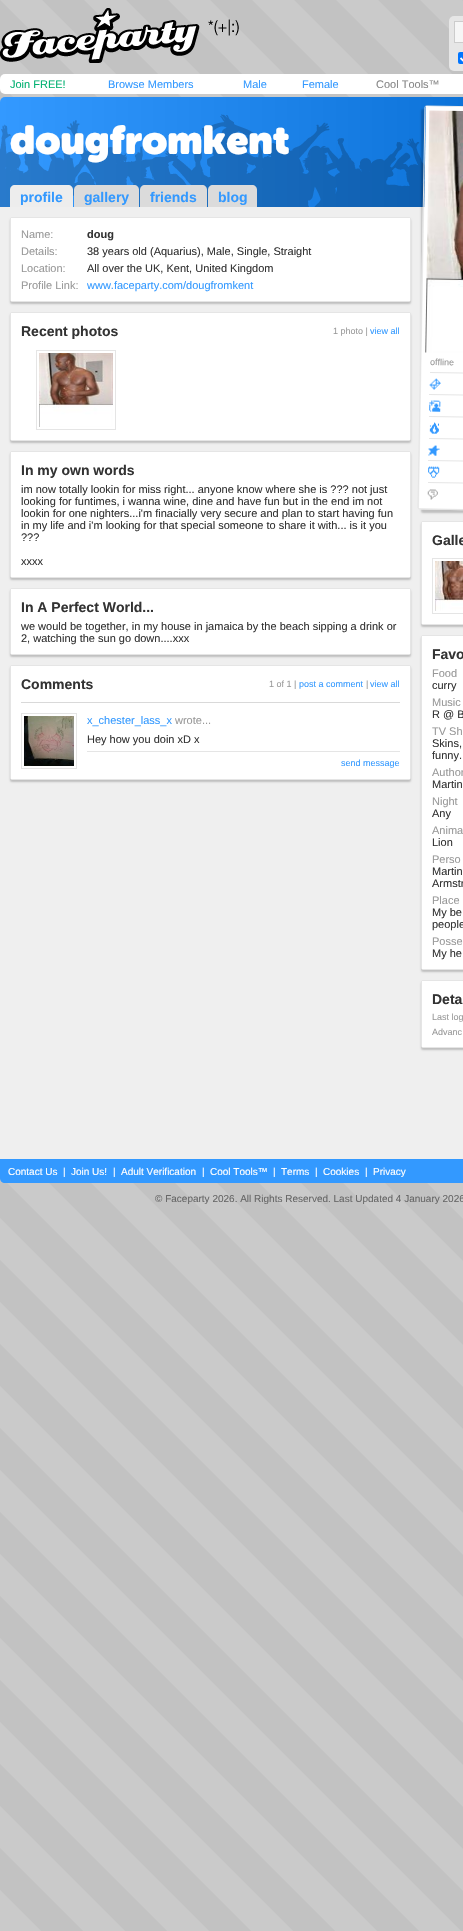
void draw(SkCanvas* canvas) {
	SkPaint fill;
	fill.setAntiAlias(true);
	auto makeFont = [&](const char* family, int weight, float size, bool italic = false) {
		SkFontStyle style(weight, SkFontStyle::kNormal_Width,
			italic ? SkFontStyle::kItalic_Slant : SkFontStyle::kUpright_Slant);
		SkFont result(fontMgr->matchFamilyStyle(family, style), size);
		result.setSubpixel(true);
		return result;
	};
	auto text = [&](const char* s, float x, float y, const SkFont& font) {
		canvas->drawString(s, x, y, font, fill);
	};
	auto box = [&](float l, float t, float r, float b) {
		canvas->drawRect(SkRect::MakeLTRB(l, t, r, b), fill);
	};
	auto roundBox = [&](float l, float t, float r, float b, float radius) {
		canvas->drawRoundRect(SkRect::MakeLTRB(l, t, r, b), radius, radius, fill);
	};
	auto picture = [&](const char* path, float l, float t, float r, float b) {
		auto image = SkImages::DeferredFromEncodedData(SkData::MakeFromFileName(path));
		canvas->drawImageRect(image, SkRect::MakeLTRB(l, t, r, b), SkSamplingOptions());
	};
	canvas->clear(0xFFFFFFFF);
	picture("image0.png", 0, 0, 463, 1931);
	picture("image1.png", 0, 8, 239, 63);
	fill.setColor(0xFFE6E6E6);
	roundBox(449, 16, 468, 71, 5);
	fill.setColor(0xFFF6F6F6);
	canvas->drawRect(SkRect::MakeLTRB(454.5f, 21.5f, 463.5f, 42.5f), fill);
	fill.setStyle(SkPaint::kStroke_Style);
	fill.setStrokeWidth(1);
	fill.setColor(0xFFCCCCCC);
	canvas->drawRect(SkRect::MakeLTRB(454.5f, 21.5f, 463.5f, 42.5f), fill);
	fill.setStyle(SkPaint::kFill_Style);
	fill.setColor(0xFF0075FF);
	roundBox(458, 52, 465, 64, 2);
	fill.setStyle(SkPaint::kStroke_Style);
	fill.setStrokeWidth(1.9f);
	fill.setColor(0xFFFFFFFF);
	canvas->drawPath(SkPathBuilder().moveTo(460.5f, 58).lineTo(463, 60.5f).lineTo(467.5f, 54.5f).detach(), fill);
	fill.setStyle(SkPaint::kFill_Style);
	roundBox(0, 74, 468, 94, 5);
	picture("image2.png", 0, 97, 463, 207);
	fill.setColor(0xFFEDEDED);
	canvas->drawPath(SkPathBuilder().moveTo(15, 185).lineTo(68, 185).cubicTo(71, 185, 73, 187, 73, 190).lineTo(73, 207).lineTo(10, 207).lineTo(10, 190).cubicTo(10, 187, 12, 185, 15, 185).close().detach(), fill);
	fill.setColor(0xFFDBDBDB);
	canvas->drawPath(SkPathBuilder().moveTo(79, 185).lineTo(134, 185).cubicTo(137, 185, 139, 187, 139, 190).lineTo(139, 207).lineTo(74, 207).lineTo(74, 190).cubicTo(74, 187, 76, 185, 79, 185).close().detach(), fill);
	canvas->drawPath(SkPathBuilder().moveTo(145, 185).lineTo(202, 185).cubicTo(205, 185, 207, 187, 207, 190).lineTo(207, 207).lineTo(140, 207).lineTo(140, 190).cubicTo(140, 187, 142, 185, 145, 185).close().detach(), fill);
	canvas->drawPath(SkPathBuilder().moveTo(213, 185).lineTo(252, 185).cubicTo(255, 185, 257, 187, 257, 190).lineTo(257, 207).lineTo(208, 207).lineTo(208, 190).cubicTo(208, 187, 210, 185, 213, 185).close().detach(), fill);
	fill.setColor(0xFFEFEFEF);
	box(0, 207, 463, 1159);
	fill.setColor(0x33000000);
	fill.setMaskFilter(SkMaskFilter::MakeBlur(kNormal_SkBlurStyle, 1));
	canvas->drawRoundRect(SkRect::MakeLTRB(10, 219, 411, 304), 2, 2, fill);
	fill.setMaskFilter(nullptr);
	fill.setStyle(SkPaint::kStroke_Style);
	fill.setStrokeWidth(1);
	fill.setColor(0xFFE5E5E5);
	canvas->drawRoundRect(SkRect::MakeLTRB(10.5f, 217.5f, 410.5f, 301.5f), 1.5f, 1.5f, fill);
	fill.setStyle(SkPaint::kFill_Style);
	fill.setColor(0xFFFFFFFF);
	box(11, 218, 410, 301);
	fill.setColor(0x33000000);
	fill.setMaskFilter(SkMaskFilter::MakeBlur(kNormal_SkBlurStyle, 1));
	canvas->drawRoundRect(SkRect::MakeLTRB(10, 314, 411, 443), 2, 2, fill);
	fill.setMaskFilter(nullptr);
	fill.setStyle(SkPaint::kStroke_Style);
	fill.setColor(0xFFE5E5E5);
	canvas->drawRoundRect(SkRect::MakeLTRB(10.5f, 312.5f, 410.5f, 440.5f), 1.5f, 1.5f, fill);
	fill.setStyle(SkPaint::kFill_Style);
	fill.setColor(0xFFFFFFFF);
	box(11, 313, 410, 440);
	fill.setColor(0xFFE5E5E5);
	box(36, 350, 116, 430);
	fill.setColor(0xFFFFFFFF);
	box(37, 351, 115, 429);
	picture("image3.png", 39, 353, 113, 427);
	fill.setColor(0x33000000);
	fill.setMaskFilter(SkMaskFilter::MakeBlur(kNormal_SkBlurStyle, 1));
	canvas->drawRoundRect(SkRect::MakeLTRB(10, 453, 411, 580), 2, 2, fill);
	fill.setMaskFilter(nullptr);
	fill.setStyle(SkPaint::kStroke_Style);
	fill.setColor(0xFFE5E5E5);
	canvas->drawRoundRect(SkRect::MakeLTRB(10.5f, 451.5f, 410.5f, 577.5f), 1.5f, 1.5f, fill);
	fill.setStyle(SkPaint::kFill_Style);
	fill.setColor(0xFFFFFFFF);
	box(11, 452, 410, 577);
	fill.setColor(0x33000000);
	fill.setMaskFilter(SkMaskFilter::MakeBlur(kNormal_SkBlurStyle, 1));
	canvas->drawRoundRect(SkRect::MakeLTRB(10, 590, 411, 657), 2, 2, fill);
	fill.setMaskFilter(nullptr);
	fill.setStyle(SkPaint::kStroke_Style);
	fill.setColor(0xFFE5E5E5);
	canvas->drawRoundRect(SkRect::MakeLTRB(10.5f, 588.5f, 410.5f, 654.5f), 1.5f, 1.5f, fill);
	fill.setStyle(SkPaint::kFill_Style);
	fill.setColor(0xFFFFFFFF);
	box(11, 589, 410, 654);
	fill.setColor(0x33000000);
	fill.setMaskFilter(SkMaskFilter::MakeBlur(kNormal_SkBlurStyle, 1));
	canvas->drawRoundRect(SkRect::MakeLTRB(10, 667, 411, 782), 2, 2, fill);
	fill.setMaskFilter(nullptr);
	fill.setStyle(SkPaint::kStroke_Style);
	fill.setColor(0xFFE5E5E5);
	canvas->drawRoundRect(SkRect::MakeLTRB(10.5f, 665.5f, 410.5f, 779.5f), 1.5f, 1.5f, fill);
	fill.setStyle(SkPaint::kFill_Style);
	fill.setColor(0xFFFFFFFF);
	box(11, 666, 410, 779);
	fill.setColor(0xFFD9D9D9);
	box(21, 702, 400, 703);
	fill.setColor(0xFFE5E5E5);
	box(21, 713, 77, 769);
	fill.setColor(0xFFFFFFFF);
	box(22, 714, 76, 768);
	picture("image4.png", 24, 716, 74, 766);
	fill.setColor(0xFFE5E5E5);
	box(87, 751, 400, 752);
	canvas->save();
	canvas->clipPath(SkPathBuilder(SkPathFillType::kEvenOdd).moveTo(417, 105).lineTo(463, 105).lineTo(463, 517).lineTo(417, 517).close().moveTo(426.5f, 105.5f).lineTo(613.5f, 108.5f).cubicTo(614.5f, 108.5f, 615.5f, 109.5f, 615.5f, 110.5f).lineTo(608.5f, 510.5f).cubicTo(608.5f, 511.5f, 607.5f, 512.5f, 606.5f, 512.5f).lineTo(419.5f, 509.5f).cubicTo(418.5f, 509.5f, 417.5f, 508.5f, 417.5f, 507.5f).lineTo(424.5f, 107.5f).cubicTo(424.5f, 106.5f, 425.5f, 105.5f, 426.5f, 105.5f).close().detach(), true);
	fill.setColor(0x33000000);
	fill.setMaskFilter(SkMaskFilter::MakeBlur(kNormal_SkBlurStyle, 1));
	canvas->drawRoundRect(SkRect::MakeLTRB(421, 109, 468, 513), 2, 2, fill);
	fill.setMaskFilter(nullptr);
	canvas->restore();
	fill.setStyle(SkPaint::kStroke_Style);
	fill.setColor(0xFFE5E5E5);
	canvas->drawPath(SkPathBuilder().moveTo(426.5f, 106).lineTo(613.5f, 109).cubicTo(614.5f, 109, 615, 110, 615, 110.5f).lineTo(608, 510.5f).cubicTo(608, 511.5f, 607.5f, 512, 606.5f, 512).lineTo(419.5f, 509).cubicTo(418.5f, 509, 418, 508, 418, 507.5f).lineTo(425, 107.5f).cubicTo(425, 106.5f, 425.5f, 106, 426.5f, 106).close().detach(), fill);
	fill.setStyle(SkPaint::kFill_Style);
	fill.setColor(0xFFFFFFFF);
	canvas->drawPath(SkPathBuilder().moveTo(426, 106).lineTo(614, 110).lineTo(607, 512).lineTo(419, 508).close().detach(), fill);
	picture("image5.png", 425, 110, 463, 353);
	fill.setColor(0xFFE6E6E6);
	canvas->drawPath(SkPathBuilder().moveTo(430, 372).lineTo(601, 375).lineTo(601, 376).lineTo(430, 373).close().moveTo(429, 394).lineTo(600, 397).lineTo(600, 398).lineTo(429, 395).close().moveTo(429, 416).lineTo(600, 419).lineTo(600, 420).lineTo(429, 417).close().detach(), fill);
	picture("image6.png", 429, 378, 441, 390);
	picture("image7.png", 429, 400, 441, 412);
	picture("image8.png", 429, 422, 439, 434);
	canvas->drawPath(SkPathBuilder().moveTo(429, 438).lineTo(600, 441).lineTo(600, 442).lineTo(429, 439).close().moveTo(428, 460).lineTo(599, 463).lineTo(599, 464).lineTo(428, 461).close().moveTo(428, 482).lineTo(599, 485).lineTo(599, 486).lineTo(428, 483).close().detach(), fill);
	picture("image9.png", 428, 445, 440, 456);
	picture("image10.png", 428, 466, 440, 478);
	picture("image11.png", 427, 489, 438, 500);
	fill.setColor(0x33000000);
	fill.setMaskFilter(SkMaskFilter::MakeBlur(kNormal_SkBlurStyle, 1));
	canvas->drawRoundRect(SkRect::MakeLTRB(421, 523, 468, 627), 2, 2, fill);
	fill.setMaskFilter(nullptr);
	fill.setStyle(SkPaint::kStroke_Style);
	fill.setColor(0xFFE5E5E5);
	canvas->drawRoundRect(SkRect::MakeLTRB(421.5f, 521.5f, 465.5f, 624.5f), 1.5f, 1.5f, fill);
	fill.setStyle(SkPaint::kFill_Style);
	fill.setColor(0xFFFFFFFF);
	box(422, 522, 463, 624);
	fill.setColor(0xFFE5E5E5);
	box(432, 558, 463, 614);
	fill.setColor(0xFFFFFFFF);
	box(433, 559, 463, 613);
	picture("image12.png", 435, 561, 463, 611);
	fill.setColor(0x33000000);
	fill.setMaskFilter(SkMaskFilter::MakeBlur(kNormal_SkBlurStyle, 1));
	canvas->drawRoundRect(SkRect::MakeLTRB(421, 637, 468, 972), 2, 2, fill);
	fill.setMaskFilter(nullptr);
	fill.setStyle(SkPaint::kStroke_Style);
	fill.setColor(0xFFE5E5E5);
	canvas->drawRoundRect(SkRect::MakeLTRB(421.5f, 635.5f, 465.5f, 969.5f), 1.5f, 1.5f, fill);
	fill.setStyle(SkPaint::kFill_Style);
	fill.setColor(0xFFFFFFFF);
	box(422, 636, 463, 969);
	fill.setColor(0x33000000);
	fill.setMaskFilter(SkMaskFilter::MakeBlur(kNormal_SkBlurStyle, 1));
	canvas->drawRoundRect(SkRect::MakeLTRB(421, 982, 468, 1050), 2, 2, fill);
	fill.setMaskFilter(nullptr);
	fill.setStyle(SkPaint::kStroke_Style);
	fill.setColor(0xFFE5E5E5);
	canvas->drawRoundRect(SkRect::MakeLTRB(421.5f, 980.5f, 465.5f, 1047.5f), 1.5f, 1.5f, fill);
	fill.setStyle(SkPaint::kFill_Style);
	fill.setColor(0xFFFFFFFF);
	box(422, 981, 463, 1047);
	fill.setColor(0xFF3399FF);
	canvas->drawPath(SkPathBuilder().moveTo(0, 1159).lineTo(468, 1159).lineTo(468, 1178).cubicTo(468, 1181, 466, 1183, 463, 1183).lineTo(5, 1183).cubicTo(2, 1183, 0, 1181, 0, 1178).close().detach(), fill);
	auto font1 = makeFont("Liberation Sans", 400, 11);
	fill.setColor(0xFF00B070);
	text("Join FREE!", 10, 88, font1);
	fill.setColor(0xFF3399FF);
	text("Browse Members", 108, 88, font1);
	text("Male", 243, 88, font1);
	text("Female", 302, 88, font1);
	fill.setColor(0xFF888888);
	text("Cool Tools™", 376, 88, font1);
	auto font2 = makeFont("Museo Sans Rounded", 900, 40);
	fill.setColor(0xFFFFFFFF);
	text("dougfromkent", 10, 154, font2);
	auto font3 = makeFont("Liberation Sans", 700, 14);
	fill.setColor(0xFF3399FF);
	text("profile", 20, 202, font3);
	text("gallery", 84, 202, font3);
	text("friends", 150, 202, font3);
	text("blog", 218, 202, font3);
	fill.setColor(0xFF999999);
	text("Name:", 21, 238, font1);
	auto font4 = makeFont("Liberation Sans", 700, 11);
	fill.setColor(0xFF333333);
	text("doug", 87, 238, font4);
	fill.setColor(0xFF999999);
	text("Details:", 21, 255, font1);
	fill.setColor(0xFF333333);
	text("38 years old (Aquarius), Male, Single, Straight", 87, 255, font1);
	fill.setColor(0xFF999999);
	text("Location:", 21, 272, font1);
	fill.setColor(0xFF333333);
	text("All over the UK, Kent, United Kingdom", 87, 272, font1);
	fill.setColor(0xFF999999);
	text("Profile Link:", 21, 289, font1);
	fill.setColor(0xFF3399FF);
	text("www.faceparty.com/dougfromkent", 87, 289, font1);
	fill.setColor(0xFF333333);
	text("Recent photos", 21, 336, font3);
	auto font5 = makeFont("Liberation Sans", 400, 9);
	fill.setColor(0xFF999999);
	text("1 photo |", 333, 334, font5);
	fill.setColor(0xFF3399FF);
	text("view all", 370, 334, font5);
	fill.setColor(0xFF333333);
	text("In my own words", 21, 475, font3);
	text("im now totally lookin for miss right... anyone know where she is ?\077? not just", 21, 493, font1);
	text("looking for funtimes, i wanna wine, dine and have fun but in the end im not", 21, 505, font1);
	text("lookin for one nighters...i'm finacially very secure and plan to start having fun", 21, 517, font1);
	text("in my life and i'm looking for that special someone to share it with... is it you", 21, 529, font1);
	text("?\077?", 21, 541, font1);
	text("xxxx", 21, 565, font1);
	text("In A Perfect World...", 21, 612, font3);
	text("we would be together, in my house in jamaica by the beach sipping a drink or", 21, 630, font1);
	text("2, watching the sun go down....xxx", 21, 642, font1);
	text("Comments", 21, 689, font3);
	fill.setColor(0xFF999999);
	text("1 of 1 |", 269, 687, font5);
	fill.setColor(0xFF3399FF);
	text("post a comment", 299, 687, font5);
	fill.setColor(0xFF999999);
	text("|", 366, 687, font5);
	fill.setColor(0xFF3399FF);
	text("view all", 370, 687, font5);
	text("x_chester_lass_x", 87, 724, font1);
	fill.setColor(0xFF999999);
	text("wrote...", 175, 724, font1);
	fill.setColor(0xFF333333);
	text("Hey how you doin xD x", 87, 743, font1);
	fill.setColor(0xFF3399FF);
	text("send message", 341, 766, font5);
	fill.setColor(0xFF999999);
	canvas->save();
	canvas->rotate(1, 430, 365);
	text("offline", 430, 365, font5);
	canvas->restore();
	fill.setColor(0xFF333333);
	text("Galle", 432, 545, font3);
	text("Favo", 432, 659, font3);
	fill.setColor(0xFF999999);
	text("Food", 432, 677, font1);
	fill.setColor(0xFF333333);
	text("curry", 432, 689, font1);
	fill.setColor(0xFF999999);
	text("Music", 432, 706, font1);
	fill.setColor(0xFF333333);
	text("R @ B", 432, 718, font1);
	fill.setColor(0xFF999999);
	text("TV Sh", 432, 735, font1);
	fill.setColor(0xFF333333);
	text("Skins,", 432, 747, font1);
	text("funny.", 432, 759, font1);
	fill.setColor(0xFF999999);
	text("Author", 432, 776, font1);
	fill.setColor(0xFF333333);
	text("Martin", 432, 788, font1);
	fill.setColor(0xFF999999);
	text("Night", 432, 805, font1);
	fill.setColor(0xFF333333);
	text("Any", 432, 817, font1);
	fill.setColor(0xFF999999);
	text("Anima", 432, 834, font1);
	fill.setColor(0xFF333333);
	text("Lion", 432, 846, font1);
	fill.setColor(0xFF999999);
	text("Perso", 432, 863, font1);
	fill.setColor(0xFF333333);
	text("Martin", 432, 875, font1);
	text("Armstr", 432, 887, font1);
	fill.setColor(0xFF999999);
	text("Place", 432, 904, font1);
	fill.setColor(0xFF333333);
	text("My be", 432, 916, font1);
	text("people", 432, 928, font1);
	fill.setColor(0xFF999999);
	text("Posse", 432, 945, font1);
	fill.setColor(0xFF333333);
	text("My he", 432, 957, font1);
	text("Deta", 432, 1004, font3);
	fill.setColor(0xFF999999);
	text("Last log", 432, 1020, font5);
	text("Advanc", 432, 1035, font5);
	auto font6 = makeFont("Liberation Sans", 400, 10);
	fill.setColor(0xFFFFFFFF);
	text("Contact Us", 8, 1175, font6);
	text("|", 63, 1175, font6);
	text("Join Us!", 71, 1175, font6);
	text("|", 113, 1175, font6);
	text("Adult Verification", 121, 1175, font6);
	text("|", 202, 1175, font6);
	text("Cool Tools™", 210, 1175, font6);
	text("|", 273, 1175, font6);
	text("Terms", 281, 1175, font6);
	text("|", 315, 1175, font6);
	text("Cookies", 323, 1175, font6);
	text("|", 365, 1175, font6);
	text("Privacy", 373, 1175, font6);
	fill.setColor(0xFF666666);
	text("© Faceparty 2026. All Rights Reserved. Last Updated 4 January 2026", 155, 1202, font6);
}
